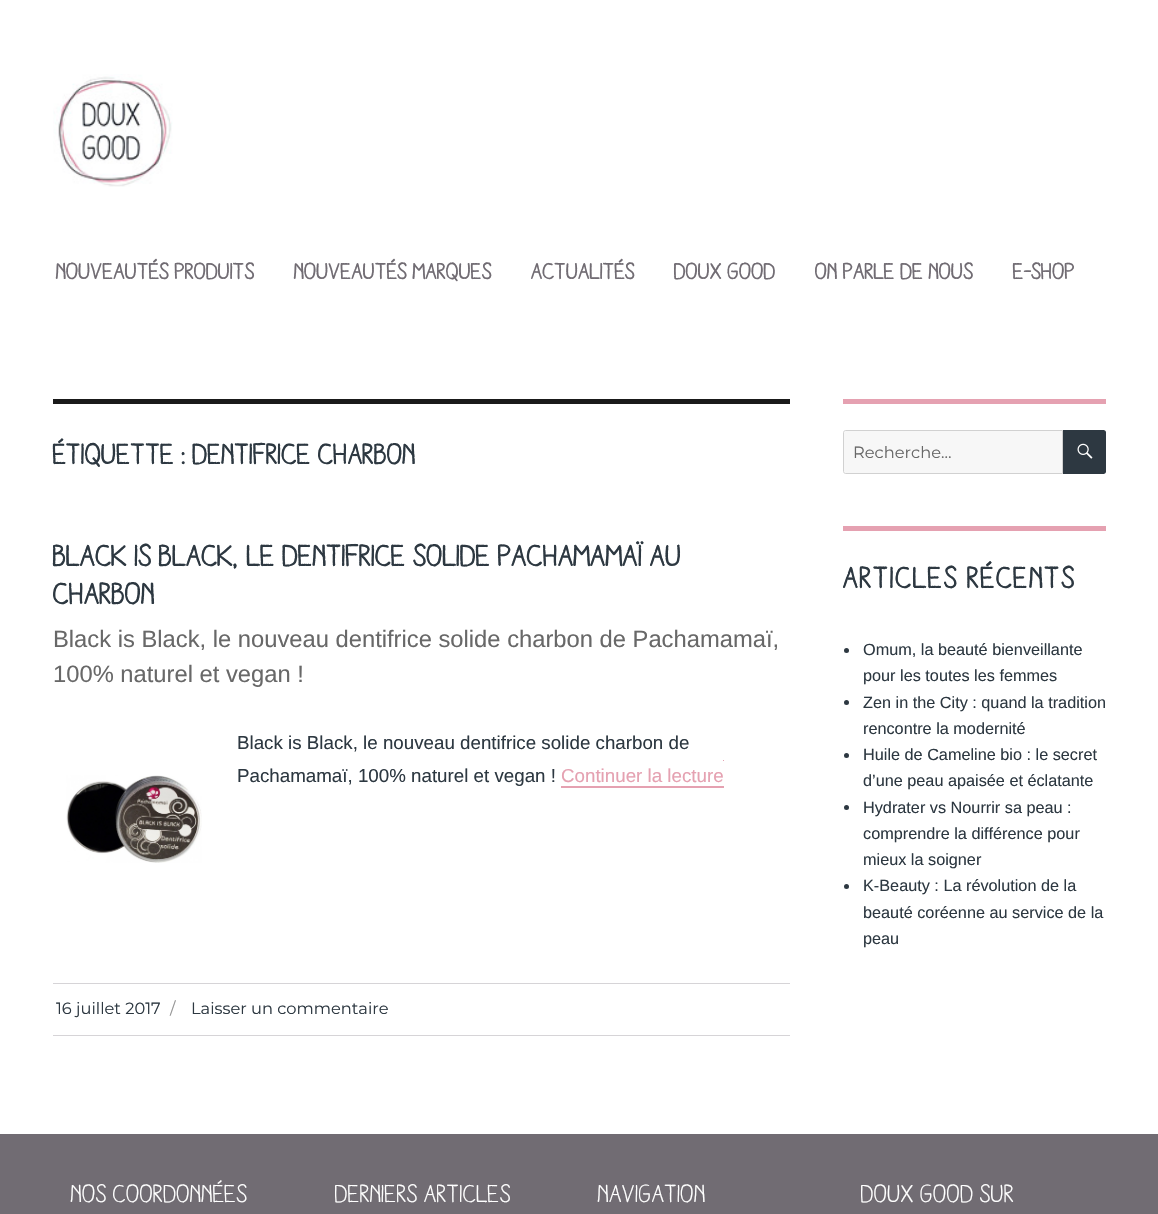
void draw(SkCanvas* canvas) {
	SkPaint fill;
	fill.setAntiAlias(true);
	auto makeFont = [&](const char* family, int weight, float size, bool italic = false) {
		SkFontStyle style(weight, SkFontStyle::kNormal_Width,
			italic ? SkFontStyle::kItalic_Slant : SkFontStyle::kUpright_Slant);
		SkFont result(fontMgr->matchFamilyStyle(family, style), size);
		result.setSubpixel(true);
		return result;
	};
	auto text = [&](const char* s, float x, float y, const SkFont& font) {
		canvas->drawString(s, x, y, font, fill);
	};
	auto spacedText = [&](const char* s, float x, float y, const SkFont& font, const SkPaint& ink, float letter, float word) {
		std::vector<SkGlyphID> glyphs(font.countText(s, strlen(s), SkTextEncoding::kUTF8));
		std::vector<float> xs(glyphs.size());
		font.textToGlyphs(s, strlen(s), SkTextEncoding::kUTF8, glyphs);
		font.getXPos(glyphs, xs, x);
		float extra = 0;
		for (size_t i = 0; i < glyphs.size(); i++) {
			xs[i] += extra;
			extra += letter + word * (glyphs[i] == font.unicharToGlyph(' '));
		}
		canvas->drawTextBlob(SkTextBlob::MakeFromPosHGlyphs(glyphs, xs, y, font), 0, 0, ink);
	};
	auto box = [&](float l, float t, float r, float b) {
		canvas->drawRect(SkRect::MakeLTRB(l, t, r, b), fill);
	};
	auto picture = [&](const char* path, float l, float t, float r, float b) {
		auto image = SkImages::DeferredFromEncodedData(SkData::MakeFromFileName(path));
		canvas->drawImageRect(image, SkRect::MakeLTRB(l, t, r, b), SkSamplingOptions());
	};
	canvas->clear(0xFF716C73);
	fill.setColor(0xFFFFFFFF);
	box(0, 0, 1158, 1134);
	picture("image0.png", 53, 74, 173, 187);
	fill.setColor(0xFF1A1A1A);
	box(53, 399, 790, 404);
	fill.setColor(0xFFE5A1B1);
	canvas->drawPath(SkPathBuilder().moveTo(561, 766).lineTo(561, 788).lineTo(724, 788).lineTo(724, 766).lineTo(724, 786).lineTo(561, 786).close().detach(), fill);
	box(723, 760, 724, 761);
	picture("image1.png", 66, 775, 202, 863);
	fill.setColor(0xFFD6D4D7);
	box(53, 983, 790, 984);
	box(53, 1035, 790, 1036);
	fill.setColor(0xFFE5A1B1);
	box(843, 399, 1106, 404);
	fill.setColor(0xFFF7F7F7);
	canvas->drawPath(SkPathBuilder().moveTo(845.5f, 430.5f).lineTo(1062.5f, 430.5f).lineTo(1062.5f, 473.5f).lineTo(845.5f, 473.5f).cubicTo(844.5f, 473.5f, 843.5f, 472.5f, 843.5f, 471.5f).lineTo(843.5f, 432.5f).cubicTo(843.5f, 431.5f, 844.5f, 430.5f, 845.5f, 430.5f).close().detach(), fill);
	fill.setStyle(SkPaint::kStroke_Style);
	fill.setStrokeWidth(1);
	fill.setColor(0xFFD1D1D1);
	canvas->drawPath(SkPathBuilder().moveTo(845.5f, 430.5f).lineTo(1062.5f, 430.5f).lineTo(1062.5f, 473.5f).lineTo(845.5f, 473.5f).cubicTo(844.5f, 473.5f, 843.5f, 472.5f, 843.5f, 471.5f).lineTo(843.5f, 432.5f).cubicTo(843.5f, 431.5f, 844.5f, 430.5f, 845.5f, 430.5f).close().detach(), fill);
	fill.setStyle(SkPaint::kFill_Style);
	fill.setColor(0xFF2D3841);
	canvas->drawPath(SkPathBuilder().moveTo(1063, 430).lineTo(1103.5f, 430).cubicTo(1105, 430, 1106, 431, 1106, 432.5f).lineTo(1106, 471.5f).cubicTo(1106, 473, 1105, 474, 1103.5f, 474).lineTo(1063, 474).close().detach(), fill);
	picture("image2.png", 1077, 443, 1093, 459);
	fill.setColor(0xFFE5A1B1);
	box(843, 526, 1106, 531);
	fill.setColor(0xFF2D3841);
	canvas->drawCircle(846.5f, 650.5f, 2.5f, fill);
	canvas->drawCircle(846.5f, 702.5f, 2.5f, fill);
	canvas->drawCircle(846.5f, 755.5f, 2.5f, fill);
	canvas->drawCircle(846.5f, 807.5f, 2.5f, fill);
	canvas->drawCircle(846.5f, 886.5f, 2.5f, fill);
	auto font1 = makeFont("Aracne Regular", 700, 22.5f);
	fill.setColor(0xFF716C73);
	text("NOUVEAUTÉS PRODUITS", 56, 279, font1);
	text("NOUVEAUTÉS MARQUES", 294, 279, font1);
	text("ACTUALITÉS", 531, 279, font1);
	text("DOUX GOOD", 674, 279, font1);
	text("ON PARLE DE NOUS", 815, 279, font1);
	text("E-SHOP", 1013, 279, font1);
	auto font2 = makeFont("Aracne Regular", 700, 28.75f);
	fill.setColor(0xFF2D3841);
	text("Étiquette : dentifrice charbon", 53, 464, font2);
	auto font3 = makeFont("Aracne Regular", 700, 30);
	text("Black is Black, le dentifrice solide Pachamamaï au", 53, 566, font3);
	text("charbon", 53, 604, font3);
	auto font4 = makeFont("Liberation Sans", 400, 23.75f);
	fill.setColor(0xFF686868);
	text("Black is Black, le nouveau dentifrice solide charbon de Pachamamaï,", 53, 647, font4);
	text("100% naturel et vegan !", 53, 682, font4);
	auto font5 = makeFont("Liberation Sans", 400, 18.75f);
	fill.setColor(0xFF2D3841);
	text("Black is Black, le nouveau dentifrice solide charbon de", 237, 749, font5);
	text("Pachamamaï, 100% naturel et vegan !", 237, 782, font5);
	fill.setColor(0xFFE5A1B1);
	text("Continuer la lecture", 561, 782, font5);
	auto font6 = makeFont("Montserrat", 100, 16.25f);
	fill.setColor(0xFF2D3841);
	text("16 juillet 2017", 56, 1014, font6);
	fill.setColor(0xFF959595);
	text("/", 170, 1014, font6);
	fill.setColor(0xFF2D3841);
	text("Laisser un commentaire", 191, 1014, font6);
	fill.setColor(0xFF686868);
	text("Recherche…", 853, 458, font6);
	fill.setColor(0xFF2D3841);
	spacedText("ARTICLES RÉCENTS", 843, 588, font3, fill, 1.4f, 0);
	auto font7 = makeFont("Liberation Sans", 400, 16.25f);
	text("Omum, la beauté bienveillante", 863, 655, font7);
	text("pour les toutes les femmes", 863, 681, font7);
	text("Zen in the City : quand la tradition", 863, 708, font7);
	text("rencontre la modernité", 863, 734, font7);
	text("Huile de Cameline bio : le secret", 863, 760, font7);
	text("d’une peau apaisée et éclatante", 863, 786, font7);
	text("Hydrater vs Nourrir sa peau :", 863, 813, font7);
	text("comprendre la différence pour", 863, 839, font7);
	text("mieux la soigner", 863, 865, font7);
	text("K-Beauty : La révolution de la", 863, 891, font7);
	text("beauté coréenne au service de la", 863, 918, font7);
	text("peau", 863, 944, font7);
	auto font8 = makeFont("Aracne Regular", 400, 25);
	fill.setColor(0xFFFFFFFF);
	text("NOS COORDONNÉES", 71, 1202, font8);
	text("DERNIERS ARTICLES", 335, 1202, font8);
	text("NAVIGATION", 598, 1202, font8);
	text("DOUX GOOD SUR", 861, 1202, font8);
}
